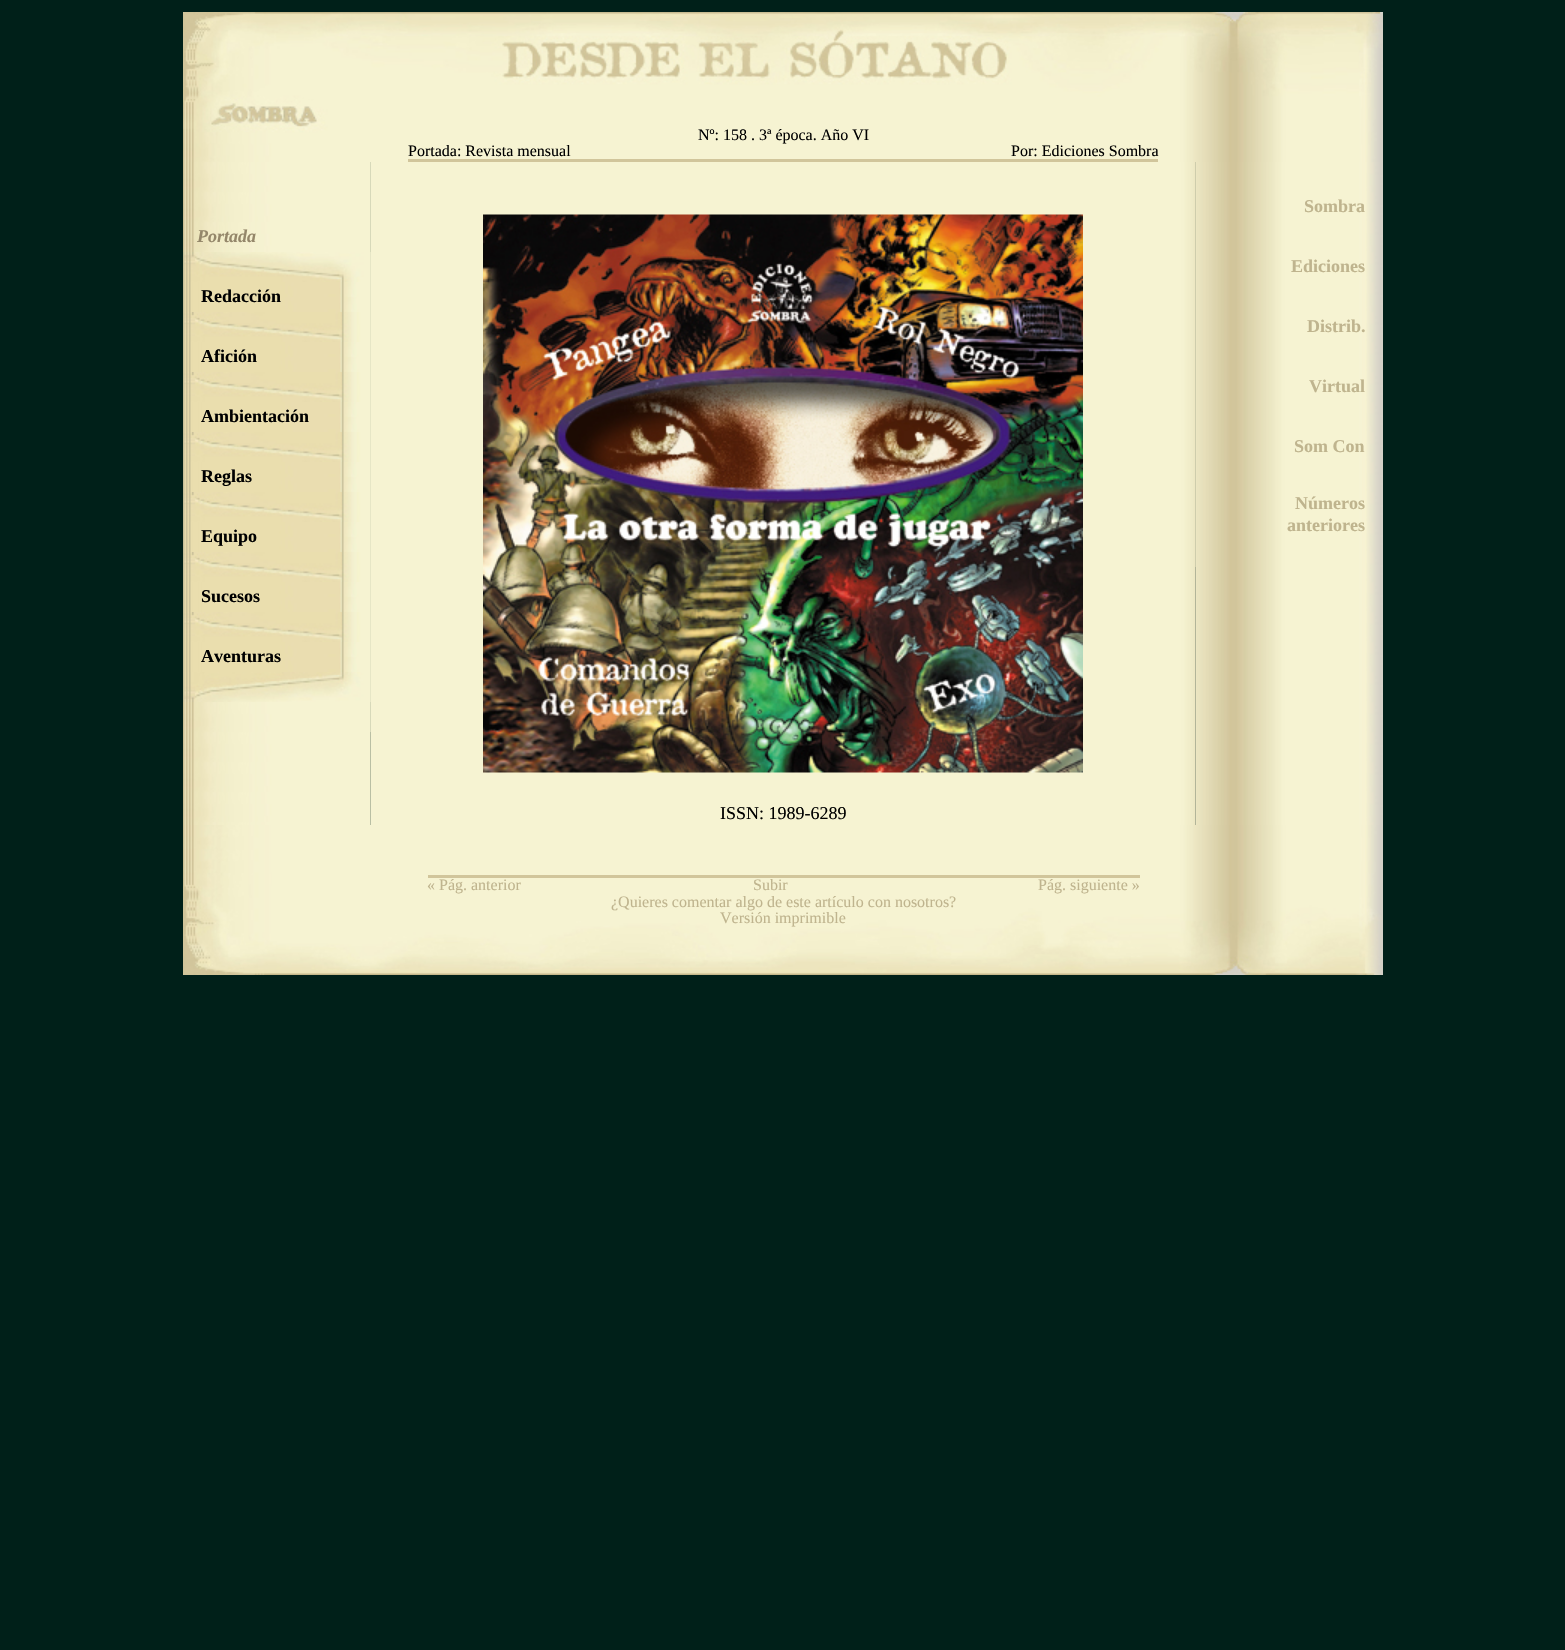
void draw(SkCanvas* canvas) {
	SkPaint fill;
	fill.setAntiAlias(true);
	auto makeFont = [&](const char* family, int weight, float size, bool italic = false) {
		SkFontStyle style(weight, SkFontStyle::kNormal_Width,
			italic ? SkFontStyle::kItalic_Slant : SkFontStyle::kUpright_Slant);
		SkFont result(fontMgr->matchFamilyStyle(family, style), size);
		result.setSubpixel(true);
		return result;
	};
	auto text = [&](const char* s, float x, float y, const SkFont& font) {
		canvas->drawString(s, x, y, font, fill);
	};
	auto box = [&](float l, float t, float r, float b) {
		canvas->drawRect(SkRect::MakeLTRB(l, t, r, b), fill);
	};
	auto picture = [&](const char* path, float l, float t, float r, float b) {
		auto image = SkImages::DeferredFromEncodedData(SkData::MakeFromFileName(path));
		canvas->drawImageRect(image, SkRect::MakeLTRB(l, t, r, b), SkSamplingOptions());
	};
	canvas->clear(0xFF002019);
	picture("image0.png", 183, 12, 1383, 162);
	fill.setColor(0xFFD1C59B);
	box(408, 159, 1158, 162);
	picture("image1.png", 183, 162, 371, 825);
	fill.setColor(0xFFB8BEA3);
	box(370, 162, 371, 732);
	picture("image2.png", 183, 252, 371, 282);
	picture("image3.png", 183, 282, 371, 312);
	picture("image4.png", 183, 312, 371, 342);
	picture("image5.png", 183, 342, 371, 372);
	picture("image4.png", 183, 372, 371, 402);
	picture("image6.png", 183, 402, 371, 432);
	picture("image4.png", 183, 432, 371, 462);
	picture("image7.png", 183, 462, 371, 492);
	picture("image4.png", 183, 492, 371, 522);
	picture("image8.png", 183, 522, 371, 552);
	picture("image4.png", 183, 552, 371, 582);
	picture("image7.png", 183, 582, 371, 612);
	picture("image4.png", 183, 612, 371, 642);
	picture("image9.png", 183, 642, 371, 672);
	picture("image10.png", 183, 672, 371, 702);
	picture("image12.png", 370, 162, 1196, 825);
	picture("image11.png", 1195, 162, 1383, 825);
	fill.setColor(0xFFCECDAC);
	box(1195, 162, 1196, 567);
	picture("image13.png", 483, 214, 1083, 773);
	picture("image14.png", 183, 825, 1383, 975);
	fill.setColor(0xFFD1C59B);
	box(428, 875, 1140, 878);
	auto font1 = makeFont("Liberation Serif", 400, 16);
	fill.setColor(0xFF000000);
	text("Nº: 158 . 3ª época. Año VI", 698, 140, font1);
	text("Portada: Revista mensual", 408, 156, font1);
	text("Por: Ediciones Sombra", 1011, 156, font1);
	auto font2 = makeFont("Liberation Serif", 700, 18, true);
	fill.setColor(0xFF94876A);
	text("Portada", 197, 242, font2);
	auto font3 = makeFont("Liberation Serif", 700, 18);
	fill.setColor(0xFF000000);
	text("Redacción", 201, 302, font3);
	text("Afición", 201, 362, font3);
	text("Ambientación", 201, 422, font3);
	text("Reglas", 201, 482, font3);
	text("Equipo", 201, 542, font3);
	text("Sucesos", 201, 602, font3);
	text("Aventuras", 201, 662, font3);
	fill.setColor(0xFFBFB48E);
	text("Sombra", 1304, 212, font3);
	text("Ediciones", 1291, 272, font3);
	text("Distrib.", 1307, 332, font3);
	text("Virtual", 1309, 392, font3);
	text("Som Con", 1294, 452, font3);
	text("Números", 1295, 509, font3);
	text("anteriores", 1287, 531, font3);
	auto font4 = makeFont("Liberation Serif", 400, 18);
	fill.setColor(0xFF000000);
	text("ISSN: 1989-6289", 720, 819, font4);
	fill.setColor(0xFFBFB48E);
	text("« Pág. anterior", 427, 890, font1);
	text("Subir", 753, 890, font1);
	text("Pág. siguiente »", 1038, 890, font1);
	text("¿Quieres comentar algo de este artículo con nosotros?", 611, 907, font1);
	text("Versión imprimible", 720, 923, font1);
}
